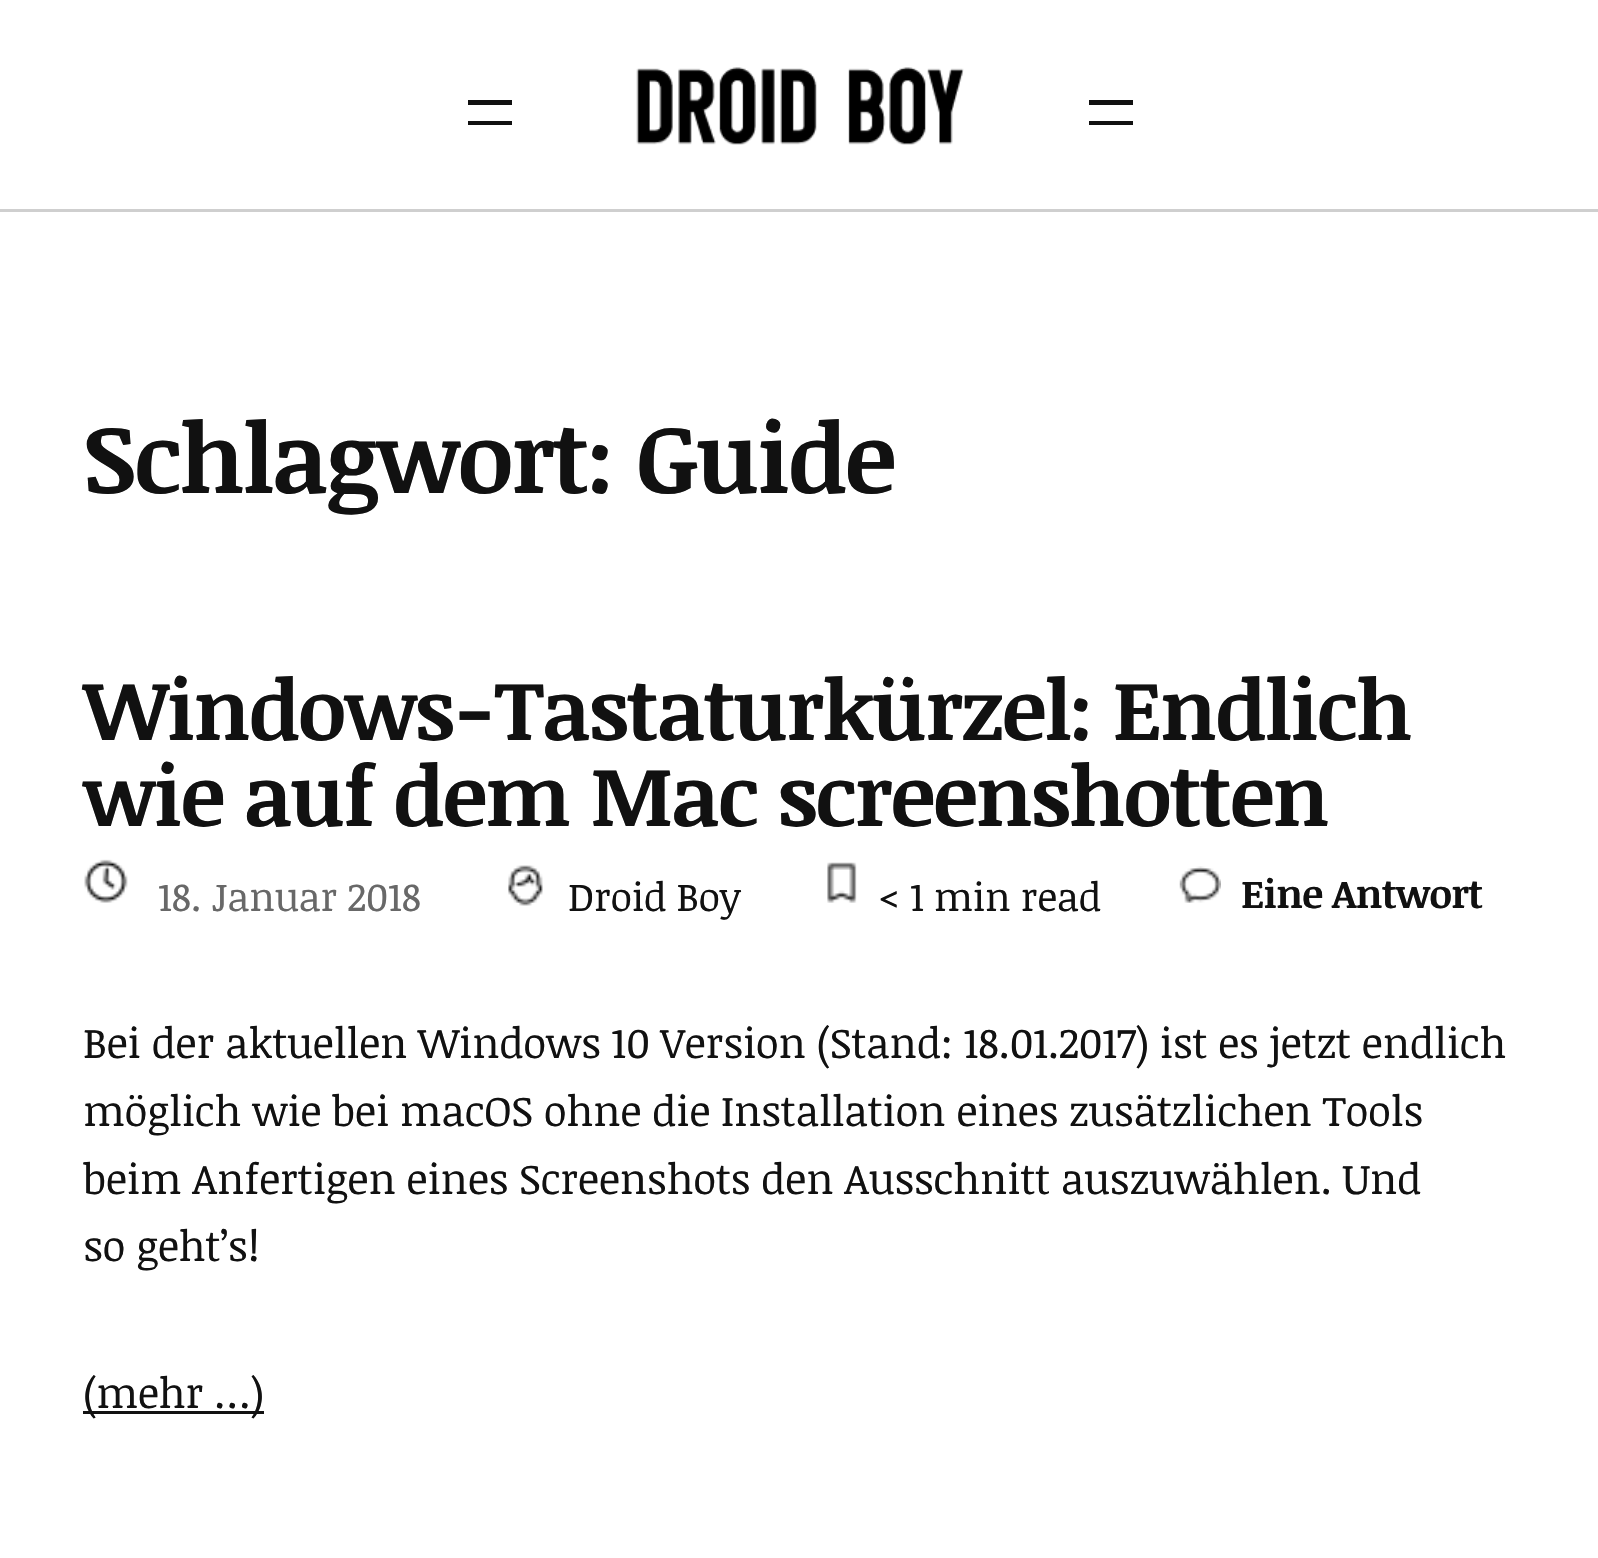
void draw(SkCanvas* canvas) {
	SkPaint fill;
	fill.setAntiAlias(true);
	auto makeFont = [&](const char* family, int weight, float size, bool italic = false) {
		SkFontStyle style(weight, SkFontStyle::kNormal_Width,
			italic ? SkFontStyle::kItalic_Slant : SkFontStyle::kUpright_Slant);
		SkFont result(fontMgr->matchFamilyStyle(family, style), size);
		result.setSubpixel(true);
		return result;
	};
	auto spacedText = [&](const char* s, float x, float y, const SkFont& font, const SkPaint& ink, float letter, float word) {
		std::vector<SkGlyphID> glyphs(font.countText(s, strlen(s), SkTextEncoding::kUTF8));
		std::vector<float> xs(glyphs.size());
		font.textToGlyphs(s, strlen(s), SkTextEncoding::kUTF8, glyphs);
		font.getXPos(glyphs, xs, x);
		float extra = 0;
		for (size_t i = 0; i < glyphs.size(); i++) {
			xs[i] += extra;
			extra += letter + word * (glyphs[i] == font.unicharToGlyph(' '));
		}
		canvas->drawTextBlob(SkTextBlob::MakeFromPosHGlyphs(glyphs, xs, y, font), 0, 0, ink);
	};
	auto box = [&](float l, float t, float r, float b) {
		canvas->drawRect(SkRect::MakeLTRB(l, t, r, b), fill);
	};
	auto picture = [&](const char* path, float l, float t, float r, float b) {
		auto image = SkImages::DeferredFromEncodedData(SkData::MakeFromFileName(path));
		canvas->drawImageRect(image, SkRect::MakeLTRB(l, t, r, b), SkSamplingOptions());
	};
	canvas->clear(0xFFFFFFFF);
	fill.setColor(0xFF111111);
	box(468, 100, 512, 105);
	box(468, 121, 512, 125);
	picture("image0.png", 636, 67, 964, 145);
	box(1089, 100, 1133, 105);
	box(1089, 121, 1133, 125);
	fill.setColor(0xFFCFCFCF);
	box(0, 209, 1598, 212);
	picture("image1.png", 84, 859, 128, 903);
	picture("image2.png", 508, 865, 543, 906);
	picture("image3.png", 827, 862, 857, 903);
	picture("image4.png", 1179, 866, 1221, 903);
	fill.setColor(0xFF111111);
	box(83, 1411, 264, 1414);
	auto font1 = makeFont("Noticia Text", 700, 97);
	spacedText("Schlagwort:", 83, 493, font1, fill, -2, 0);
	spacedText("Guide", 636, 493, font1, fill, -2, 0);
	auto font2 = makeFont("Noticia Text", 700, 84);
	spacedText("Windows-Tastaturkürzel: Endlich", 83, 740, font2, fill, -1.7f, 0);
	spacedText("wie auf dem Mac screenshotten", 83, 826, font2, fill, -1.7f, 0);
	auto font3 = makeFont("Noticia Text", 400, 39.5f);
	fill.setColor(0xFF686868);
	spacedText("18. Januar 2018", 158, 911, font3, fill, -0.42f, 0);
	fill.setColor(0xFF111111);
	spacedText("Droid Boy", 568, 911, font3, fill, -0.42f, 0);
	spacedText("< 1 min read", 878, 911, font3, fill, -0.42f, 0);
	auto font4 = makeFont("Noticia Text", 700, 39.5f);
	spacedText("Eine Antwort", 1241, 908, font4, fill, -0.75f, 0);
	auto font5 = makeFont("Noticia Text", 400, 42.15f);
	spacedText("Bei der aktuellen Windows 10 Version (Stand: 18.01.2017) ist es jetzt endlich", 83, 1058, font5, fill, -0.42f, 0);
	spacedText("möglich wie bei macOS ohne die Installation eines zusätzlichen Tools", 83, 1126, font5, fill, -0.42f, 0);
	spacedText("beim Anfertigen eines Screenshots den Ausschnitt auszuwählen. Und", 83, 1194, font5, fill, -0.42f, 0);
	spacedText("so geht’s!", 83, 1261, font5, fill, -0.42f, 0);
	spacedText("(mehr …)", 83, 1408, font5, fill, -0.42f, 0);
}
